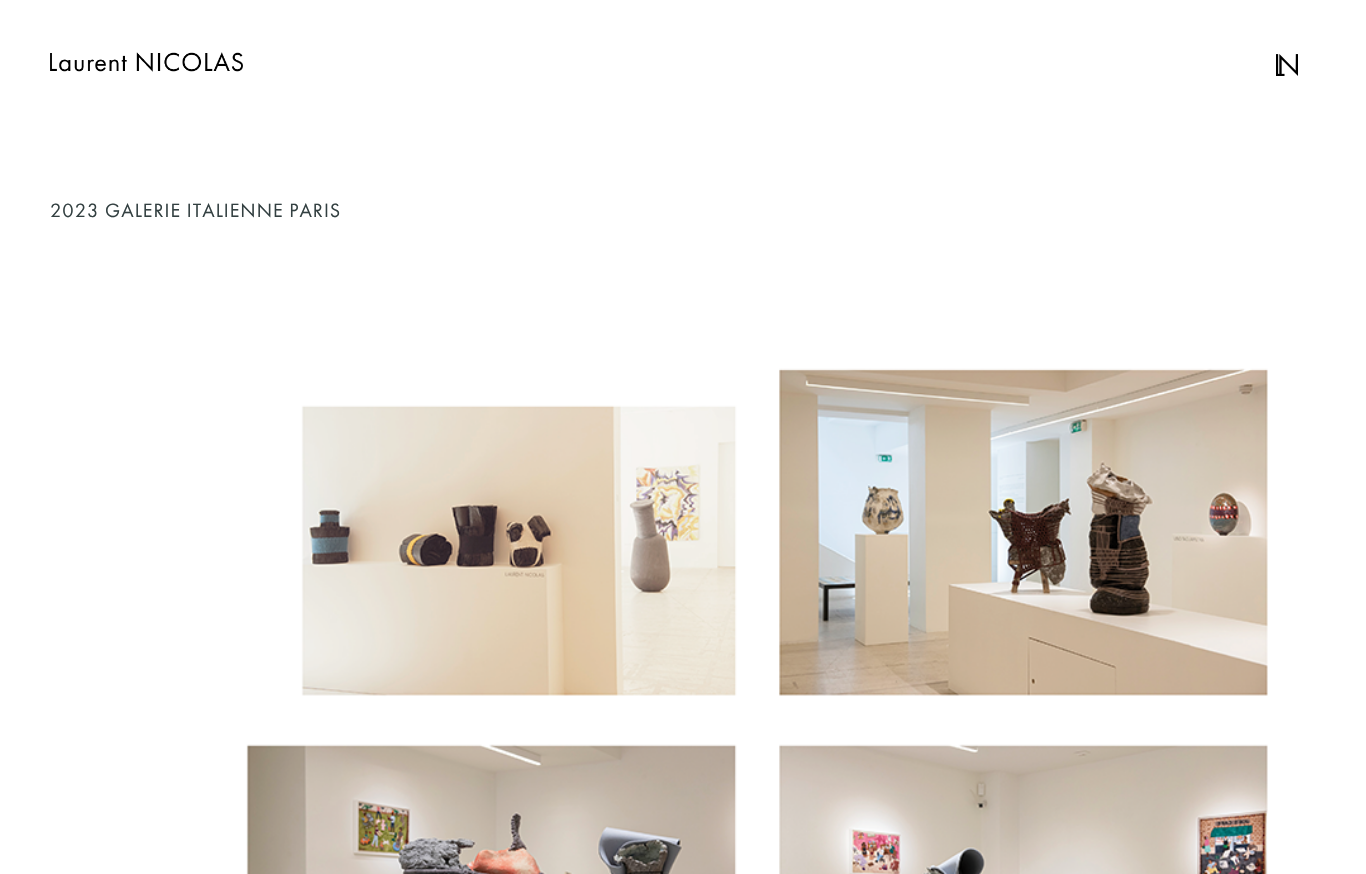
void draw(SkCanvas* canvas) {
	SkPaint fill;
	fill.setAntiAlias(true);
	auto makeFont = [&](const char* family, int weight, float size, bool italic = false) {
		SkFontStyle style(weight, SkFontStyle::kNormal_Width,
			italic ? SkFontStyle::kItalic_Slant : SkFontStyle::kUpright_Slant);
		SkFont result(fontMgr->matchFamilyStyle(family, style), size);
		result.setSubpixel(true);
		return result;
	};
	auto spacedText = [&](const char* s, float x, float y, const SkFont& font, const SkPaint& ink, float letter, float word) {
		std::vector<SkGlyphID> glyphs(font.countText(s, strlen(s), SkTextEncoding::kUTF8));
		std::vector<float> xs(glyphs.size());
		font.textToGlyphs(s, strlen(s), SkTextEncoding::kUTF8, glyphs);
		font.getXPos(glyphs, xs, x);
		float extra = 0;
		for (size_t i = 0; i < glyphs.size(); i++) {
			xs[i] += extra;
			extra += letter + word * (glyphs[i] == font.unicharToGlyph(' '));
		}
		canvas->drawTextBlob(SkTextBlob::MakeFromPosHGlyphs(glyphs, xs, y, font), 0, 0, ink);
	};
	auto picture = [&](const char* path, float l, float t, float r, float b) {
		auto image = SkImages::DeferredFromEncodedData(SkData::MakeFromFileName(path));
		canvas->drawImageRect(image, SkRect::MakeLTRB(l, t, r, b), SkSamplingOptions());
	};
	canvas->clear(0xFFFFFFFF);
	picture("image0.png", 50, 52, 243, 72);
	picture("image1.png", 1276, 54, 1298, 76);
	picture("image2.png", 246, 368, 1268, 874);
	auto font1 = makeFont("Futura PT", 400, 20);
	fill.setColor(0xFF334041);
	spacedText("2023 GALERIE ITALIENNE PARIS", 50, 217, font1, fill, 1, 0);
}
